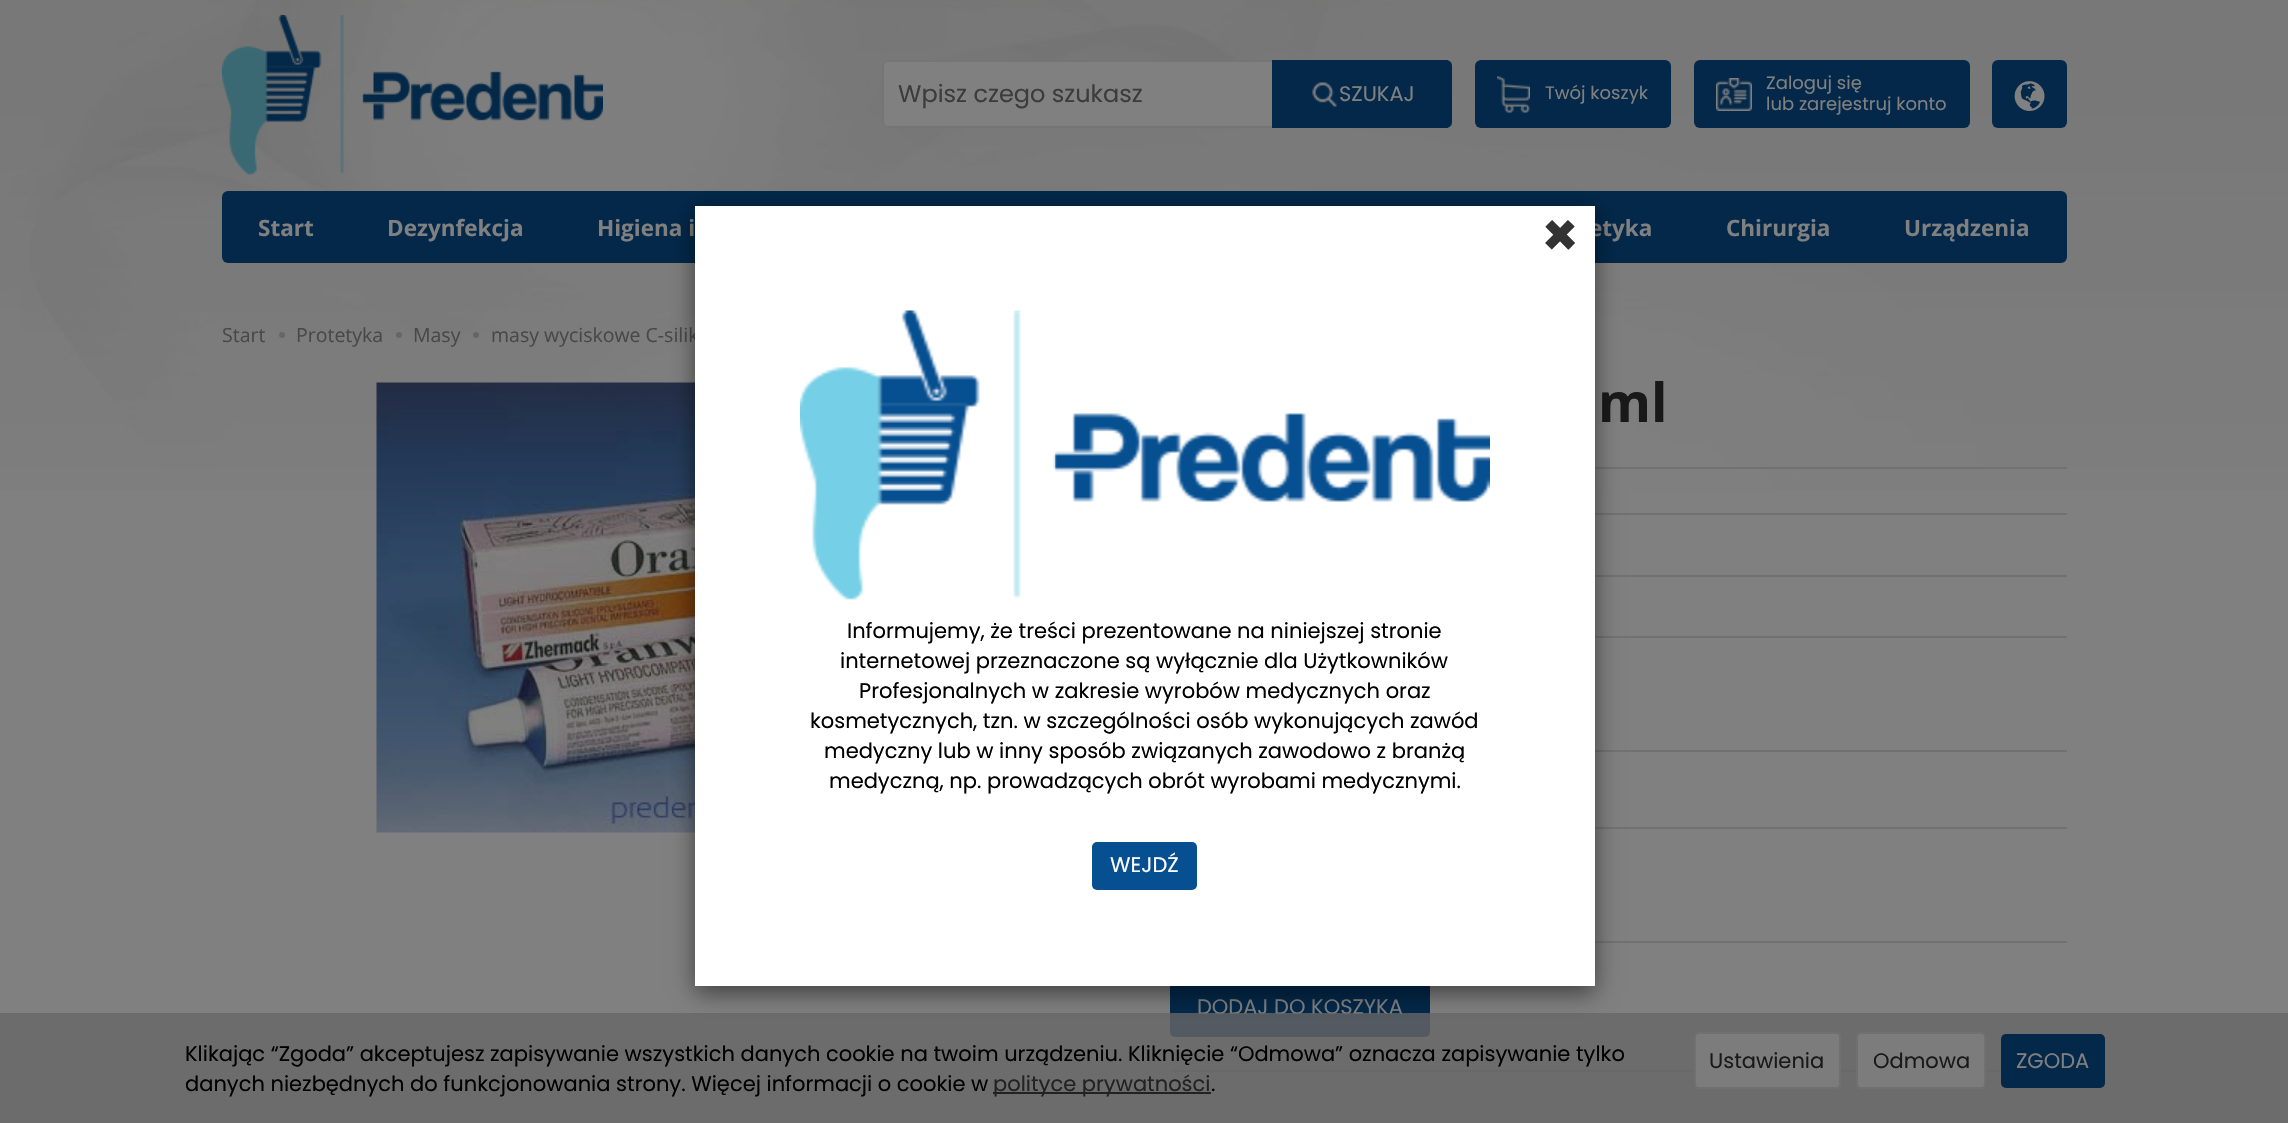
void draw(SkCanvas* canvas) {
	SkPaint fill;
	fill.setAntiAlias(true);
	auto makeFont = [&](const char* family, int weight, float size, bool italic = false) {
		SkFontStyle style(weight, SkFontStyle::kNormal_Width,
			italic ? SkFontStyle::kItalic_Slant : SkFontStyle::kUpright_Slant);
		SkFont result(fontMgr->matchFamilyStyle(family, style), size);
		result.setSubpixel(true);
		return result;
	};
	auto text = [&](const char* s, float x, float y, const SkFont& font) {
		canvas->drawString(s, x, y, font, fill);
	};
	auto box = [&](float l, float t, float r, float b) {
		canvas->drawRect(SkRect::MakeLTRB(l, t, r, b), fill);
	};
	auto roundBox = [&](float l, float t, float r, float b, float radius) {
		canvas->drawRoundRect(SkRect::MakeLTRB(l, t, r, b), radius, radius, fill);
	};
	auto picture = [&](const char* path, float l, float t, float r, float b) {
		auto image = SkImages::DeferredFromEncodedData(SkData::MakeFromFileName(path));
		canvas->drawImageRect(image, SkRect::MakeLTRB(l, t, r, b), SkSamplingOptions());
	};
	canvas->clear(0xFF808080);
	picture("image0.png", 0, 0, 2288, 491);
	picture("image1.png", 222, 15, 603, 175);
	fill.setColor(0xFF808080);
	canvas->drawPath(SkPathBuilder().moveTo(888, 60).lineTo(1274, 60).lineTo(1274, 128).lineTo(888, 128).cubicTo(884.5f, 128, 882, 125.5f, 882, 122).lineTo(882, 66).cubicTo(882, 62.5f, 884.5f, 60, 888, 60).close().detach(), fill);
	fill.setColor(0xFF757575);
	canvas->drawPath(SkPathBuilder(SkPathFillType::kEvenOdd).moveTo(888, 60).lineTo(1274, 60).lineTo(1274, 128).lineTo(888, 128).cubicTo(885, 128, 882, 125, 882, 122).lineTo(882, 66).cubicTo(882, 63, 885, 60, 888, 60).close().moveTo(888, 62).lineTo(1274, 62).lineTo(1274, 126).lineTo(888, 126).cubicTo(886, 126, 884, 124, 884, 122).lineTo(884, 66).cubicTo(884, 64, 886, 62, 888, 62).close().detach(), fill);
	fill.setColor(0xFF032849);
	canvas->drawPath(SkPathBuilder().moveTo(1272, 60).lineTo(1446, 60).cubicTo(1449.5f, 60, 1452, 62.5f, 1452, 66).lineTo(1452, 122).cubicTo(1452, 125.5f, 1449.5f, 128, 1446, 128).lineTo(1272, 128).close().detach(), fill);
	picture("image2.png", 1312, 82, 1337, 107);
	roundBox(1475, 60, 1671, 128, 6);
	picture("image3.png", 1497, 76, 1530, 113);
	roundBox(1694, 60, 1970, 128, 6);
	picture("image4.png", 1716, 78, 1752, 111);
	roundBox(1992, 60, 2067, 128, 6);
	picture("image5.png", 2014, 81, 2045, 111);
	roundBox(222, 191, 2067, 263, 6);
	fill.setColor(0xFF666666);
	canvas->drawCircle(282, 335, 3, fill);
	canvas->drawCircle(399, 335, 3, fill);
	canvas->drawCircle(476, 335, 3, fill);
	picture("image7.png", 376, 382, 695, 833);
	fill.setColor(0xFF717171);
	box(1595, 467, 2067, 469);
	box(1595, 513, 2067, 515);
	box(1595, 575, 2067, 577);
	box(1595, 636, 2067, 638);
	box(1595, 750, 2067, 752);
	box(1595, 827, 2067, 829);
	box(1595, 941, 2067, 943);
	fill.setColor(0xFF032849);
	roundBox(1170, 977, 1430, 1037, 5);
	fill.setColor(0xFF717171);
	box(1170, 1070, 2001, 1072);
	auto font1 = makeFont("Poppins", 400, 24);
	fill.setColor(0xFF3C3C3C);
	text("Wpisz czego szukasz", 898, 102, font1);
	auto font2 = makeFont("Poppins", 400, 21);
	fill.setColor(0xFF808080);
	text("SZUKAJ", 1339, 101, font2);
	auto font3 = makeFont("Poppins", 400, 18);
	text("Twój koszyk", 1545, 99, font3);
	text("Zaloguj się", 1766, 89, font3);
	text("lub zarejestruj konto", 1766, 110, font3);
	auto font4 = makeFont("Open Sans", 700, 22.5f);
	text("Start", 258, 236, font4);
	text("Dezynfekcja", 387, 236, font4);
	text("Higiena i", 597, 236, font4);
	text("etyka", 1589, 236, font4);
	text("Chirurgia", 1726, 236, font4);
	text("Urządzenia", 1904, 236, font4);
	auto font5 = makeFont("Open Sans", 400, 19.5f);
	fill.setColor(0xFF484848);
	text("Start", 222, 342, font5);
	text("Protetyka", 296, 342, font5);
	text("Masy", 413, 342, font5);
	text("masy wyciskowe C-silik", 491, 342, font5);
	auto font6 = makeFont("Open Sans", 700, 54);
	fill.setColor(0xFF191919);
	text("ml", 1598, 422, font6);
	fill.setColor(0xFF808080);
	text("DODAJ DO KOSZYKA", 1197, 1014, font2);
	fill.setColor(0xCC666666);
	box(0, 1013, 2288, 1123);
	fill.setColor(0x80000000);
	fill.setMaskFilter(SkMaskFilter::MakeBlur(kNormal_SkBlurStyle, 11));
	canvas->drawRect(SkRect::MakeLTRB(695, 213, 1595, 993), fill);
	fill.setMaskFilter(nullptr);
	fill.setColor(0xFFFFFFFF);
	box(695, 206, 1595, 986);
	auto font7 = makeFont("Poppins", 700, 60);
	fill.setColor(0xFF333333);
	text("×", 1541, 256, font7);
	fill.setColor(0xFF064F91);
	roundBox(1092, 842, 1197, 890, 5);
	fill.setColor(0xFFFFFFFF);
	text("WEJDŹ", 1110, 872, font2);
	fill.setColor(0xFF000000);
	text("medyczną, np. prowadzących obrót wyrobami medycznymi.", 829, 788, font2);
	text("medyczny lub w inny sposób związanych zawodowo z branżą", 824, 758, font2);
	text("kosmetycznych, tzn. w szczególności osób wykonujących zawód", 810, 728, font2);
	text("Profesjonalnych w zakresie wyrobów medycznych oraz", 859, 698, font2);
	text("internetowej przeznaczone są wyłącznie dla Użytkowników", 840, 668, font2);
	text("Informujemy, że treści prezentowane na niniejszej stronie", 847, 638, font2);
	picture("image6.png", 800, 310, 1490, 600);
	text("Klikając “Zgoda” akceptujesz zapisywanie wszystkich danych cookie na twoim urządzeniu. Kliknięcie “Odmowa” oznacza zapisywanie tylko", 185, 1061, font2);
	text("danych niezbędnych do funkcjonowania strony. Więcej informacji o cookie w", 185, 1091, font2);
	fill.setColor(0xFF222222);
	box(993, 1092, 1211, 1094);
	text("polityce prywatności", 993, 1091, font2);
	fill.setColor(0xFF000000);
	text(".", 1211, 1091, font2);
	fill.setColor(0xFF7C7C7C);
	canvas->drawRoundRect(SkRect::MakeLTRB(1695, 1033, 1840, 1088), 4, 4, fill);
	fill.setStyle(SkPaint::kStroke_Style);
	fill.setStrokeWidth(2);
	fill.setColor(0xFF707070);
	canvas->drawRoundRect(SkRect::MakeLTRB(1695, 1033, 1840, 1088), 4, 4, fill);
	fill.setStyle(SkPaint::kFill_Style);
	fill.setColor(0xFF191919);
	text("Ustawienia", 1709, 1068, font2);
	fill.setColor(0xFF7C7C7C);
	canvas->drawRoundRect(SkRect::MakeLTRB(1857, 1033, 1985, 1088), 4, 4, fill);
	fill.setStyle(SkPaint::kStroke_Style);
	fill.setColor(0xFF707070);
	canvas->drawRoundRect(SkRect::MakeLTRB(1857, 1033, 1985, 1088), 4, 4, fill);
	fill.setStyle(SkPaint::kFill_Style);
	fill.setColor(0xFF191919);
	text("Odmowa", 1873, 1068, font2);
	fill.setColor(0xFF032849);
	roundBox(2001, 1034, 2105, 1088, 5);
	fill.setColor(0xFF808080);
	text("ZGODA", 2016, 1068, font2);
}
